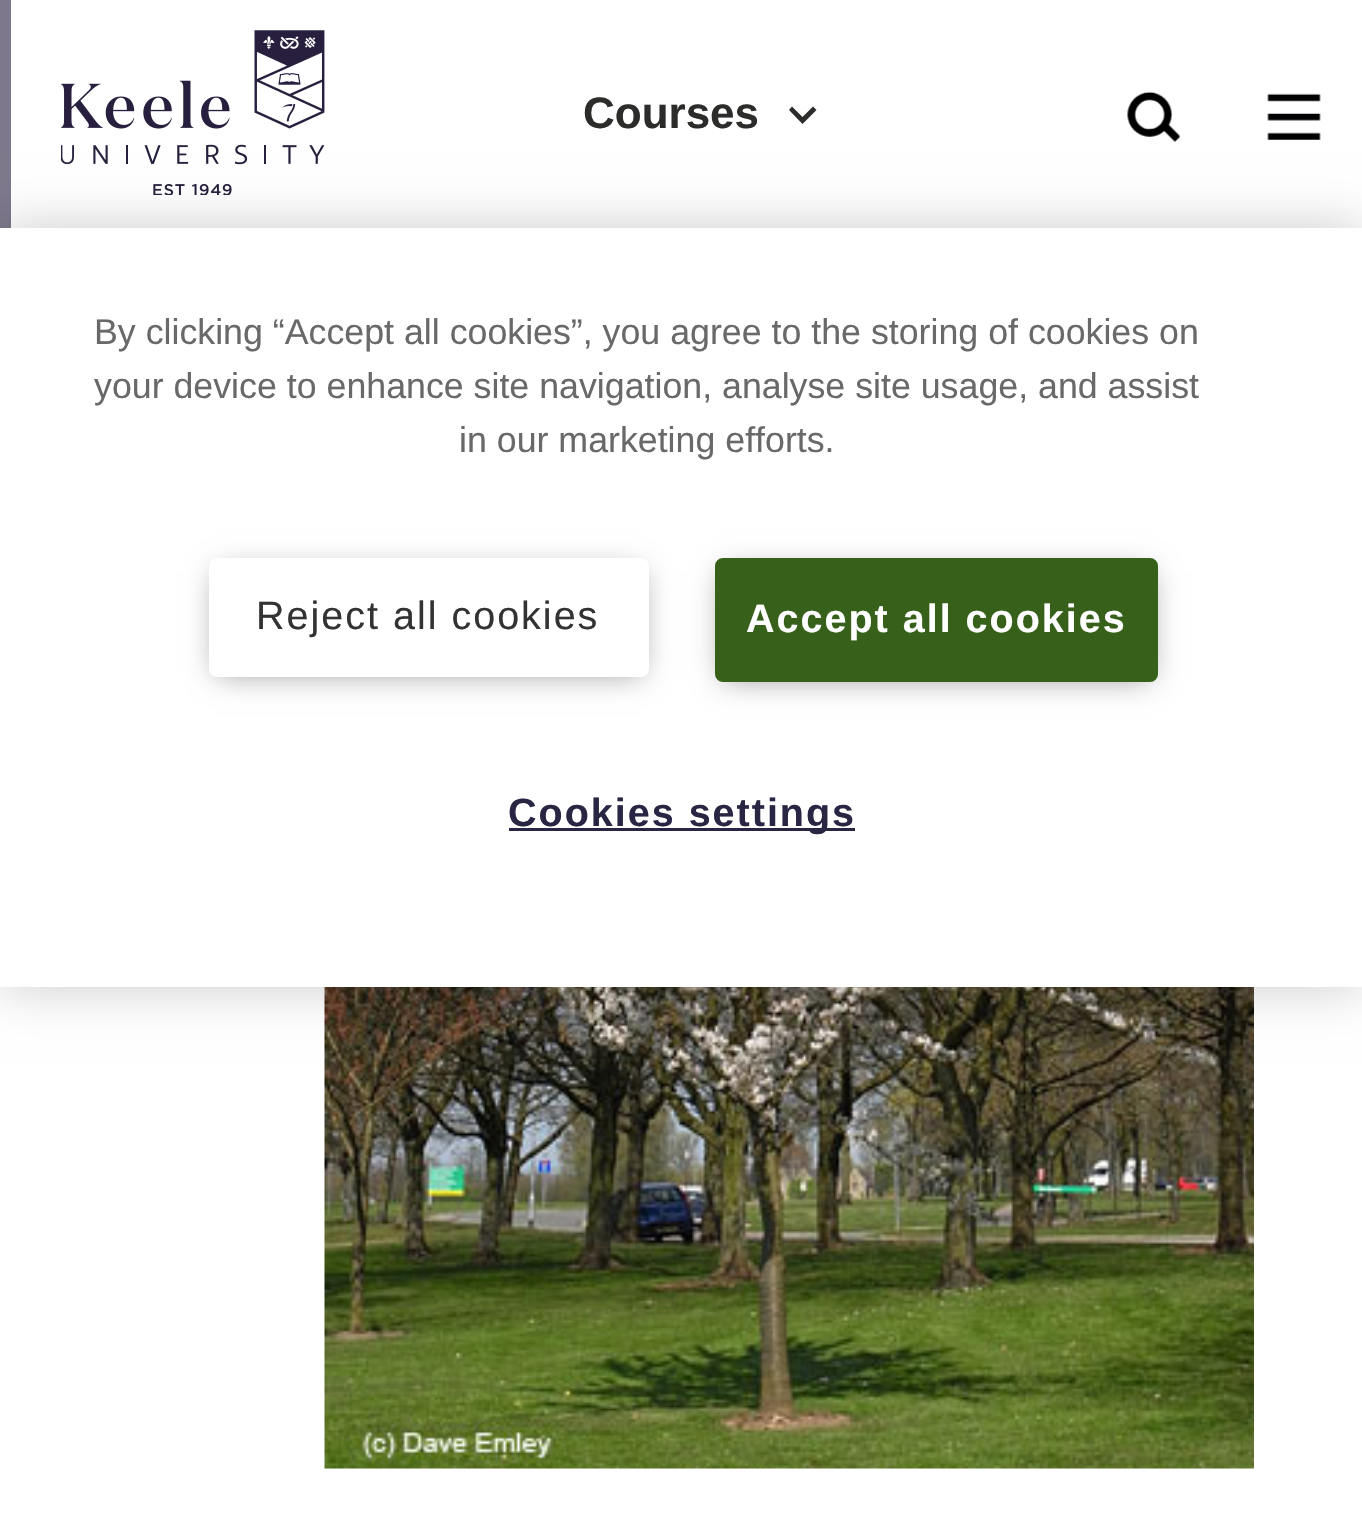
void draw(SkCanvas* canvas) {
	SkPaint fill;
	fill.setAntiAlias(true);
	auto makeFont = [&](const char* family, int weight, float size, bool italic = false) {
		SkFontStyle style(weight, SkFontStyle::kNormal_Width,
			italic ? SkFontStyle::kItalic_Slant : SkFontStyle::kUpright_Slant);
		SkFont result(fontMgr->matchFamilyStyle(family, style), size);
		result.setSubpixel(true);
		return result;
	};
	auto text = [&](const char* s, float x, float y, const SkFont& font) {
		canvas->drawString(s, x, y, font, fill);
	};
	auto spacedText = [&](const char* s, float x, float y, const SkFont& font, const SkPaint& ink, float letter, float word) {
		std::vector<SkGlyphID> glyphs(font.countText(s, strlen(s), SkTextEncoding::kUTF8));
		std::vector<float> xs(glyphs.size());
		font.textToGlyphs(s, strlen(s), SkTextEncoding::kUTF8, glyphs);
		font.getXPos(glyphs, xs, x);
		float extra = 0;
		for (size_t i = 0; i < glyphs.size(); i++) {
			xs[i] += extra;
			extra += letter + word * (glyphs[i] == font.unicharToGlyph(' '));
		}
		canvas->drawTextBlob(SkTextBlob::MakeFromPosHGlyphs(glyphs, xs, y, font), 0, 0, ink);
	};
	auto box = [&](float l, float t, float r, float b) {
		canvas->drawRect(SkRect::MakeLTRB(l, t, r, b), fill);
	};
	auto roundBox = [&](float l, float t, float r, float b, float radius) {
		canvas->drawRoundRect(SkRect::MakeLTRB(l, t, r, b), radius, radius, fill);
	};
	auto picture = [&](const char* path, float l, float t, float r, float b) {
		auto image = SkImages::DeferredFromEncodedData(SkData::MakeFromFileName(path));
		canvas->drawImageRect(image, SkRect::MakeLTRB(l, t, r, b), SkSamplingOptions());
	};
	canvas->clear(0xFFFFFFFF);
	fill.setColor(0xFF7D788B);
	box(0, 0, 11, 228);
	picture("image0.png", 61, 30, 325, 195);
	fill.setColor(0xFF2C2C2B);
	canvas->drawPath(SkPathBuilder().moveTo(792, 106.5f).lineTo(802.5f, 117).lineTo(813, 106.5f).lineTo(816.5f, 110).lineTo(802.5f, 124).lineTo(789, 110).close().detach(), fill);
	picture("image1.png", 1127, 91, 1181, 142);
	picture("image2.png", 1267, 93, 1321, 140);
	picture("image3.png", 324, 987, 1254, 1469);
	fill.setColor(0x33000000);
	fill.setMaskFilter(SkMaskFilter::MakeBlur(kNormal_SkBlurStyle, 25));
	canvas->drawRect(SkRect::MakeLTRB(0, 228, 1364, 987), fill);
	fill.setMaskFilter(nullptr);
	fill.setColor(0xFFFFFFFF);
	box(0, 228, 1362, 987);
	fill.setColor(0xFF999999);
	fill.setMaskFilter(SkMaskFilter::MakeBlur(kNormal_SkBlurStyle, 14));
	canvas->drawRect(SkRect::MakeLTRB(217, 572, 641, 674), fill);
	fill.setMaskFilter(nullptr);
	fill.setColor(0xFFFFFFFF);
	roundBox(209, 558, 649, 677, 8);
	fill.setColor(0xFF999999);
	fill.setMaskFilter(SkMaskFilter::MakeBlur(kNormal_SkBlurStyle, 14));
	canvas->drawRect(SkRect::MakeLTRB(723, 572, 1150, 679), fill);
	fill.setMaskFilter(nullptr);
	fill.setColor(0xFF37611A);
	canvas->drawRoundRect(SkRect::MakeLTRB(716.5f, 559.5f, 1156.5f, 680.5f), 6.5f, 6.5f, fill);
	fill.setStyle(SkPaint::kStroke_Style);
	fill.setStrokeWidth(3);
	canvas->drawRoundRect(SkRect::MakeLTRB(716.5f, 559.5f, 1156.5f, 680.5f), 6.5f, 6.5f, fill);
	fill.setStyle(SkPaint::kFill_Style);
	fill.setColor(0xFF292644);
	box(509, 828, 855, 831);
	auto font1 = makeFont("Liberation Sans", 700, 44);
	fill.setColor(0xFF2C2C2B);
	text("Courses", 583, 128, font1);
	auto font2 = makeFont("Liberation Sans", 400, 35.75f);
	fill.setColor(0xFF696969);
	text("By clicking “Accept all cookies”, you agree to the storing of cookies on", 94, 344, font2);
	text("your device to enhance site navigation, analyse site usage, and assist", 94, 398, font2);
	text("in our marketing efforts.", 459, 452, font2);
	auto font3 = makeFont("Liberation Sans", 400, 39.5f);
	fill.setColor(0xFF333333);
	spacedText("Reject all cookies", 256, 629, font3, fill, 2, 0);
	auto font4 = makeFont("Liberation Sans", 700, 39.5f);
	fill.setColor(0xFFFFFFFF);
	spacedText("Accept all cookies", 746, 632, font4, fill, 2, 0);
	fill.setColor(0xFF292644);
	spacedText("Cookies settings", 508, 826, font4, fill, 2, 0);
}
